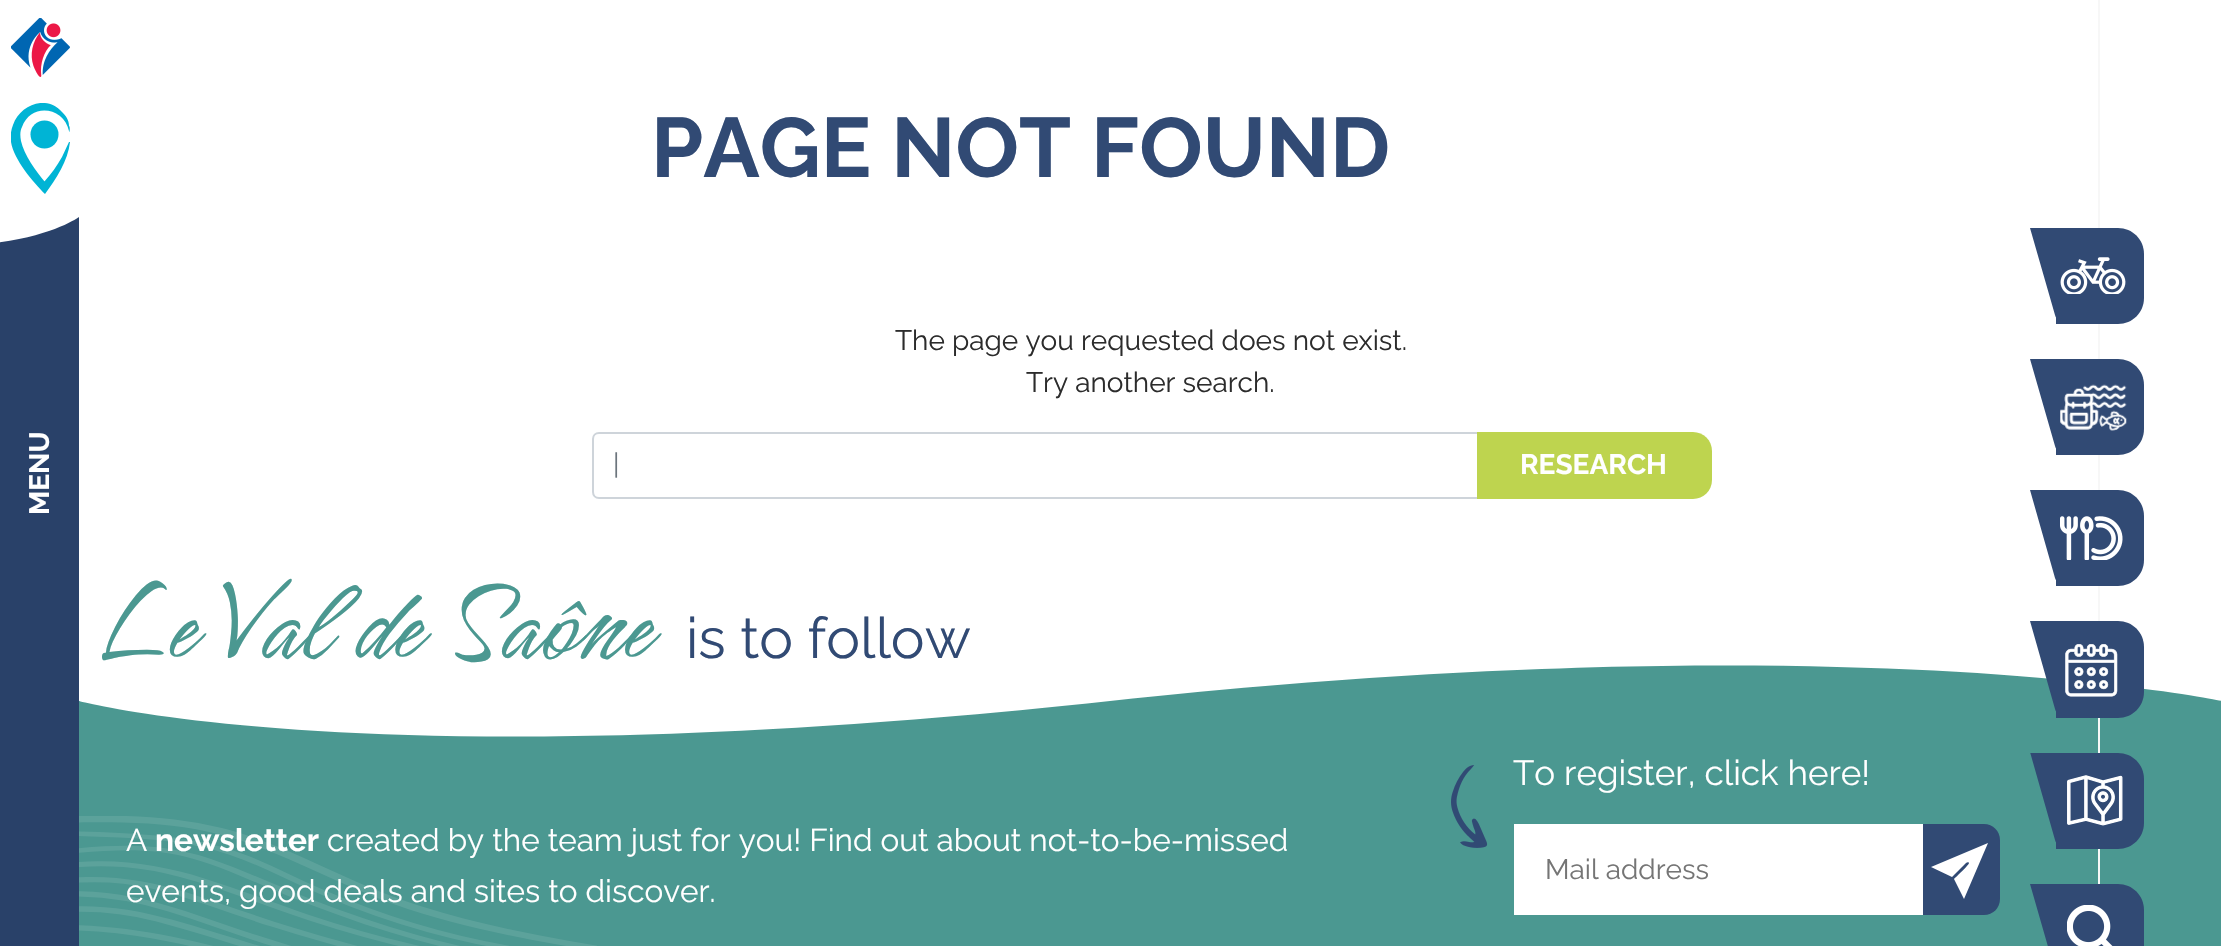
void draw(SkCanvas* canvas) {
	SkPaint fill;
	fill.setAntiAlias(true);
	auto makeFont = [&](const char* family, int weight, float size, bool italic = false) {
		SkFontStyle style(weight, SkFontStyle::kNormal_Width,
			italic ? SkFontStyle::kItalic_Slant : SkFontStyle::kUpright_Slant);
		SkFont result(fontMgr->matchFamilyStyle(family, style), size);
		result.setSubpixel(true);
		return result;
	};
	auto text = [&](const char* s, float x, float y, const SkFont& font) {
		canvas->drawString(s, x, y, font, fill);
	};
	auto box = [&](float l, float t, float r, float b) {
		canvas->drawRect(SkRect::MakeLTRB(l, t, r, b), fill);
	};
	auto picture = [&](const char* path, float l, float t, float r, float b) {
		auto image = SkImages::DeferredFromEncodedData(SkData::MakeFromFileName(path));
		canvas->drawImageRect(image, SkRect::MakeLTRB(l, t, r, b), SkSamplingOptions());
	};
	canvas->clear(0xFFFFFFFF);
	picture("image0.png", 11, 18, 70, 77);
	fill.setColor(0xFF294169);
	box(0, 217, 79, 946);
	fill.setColor(0xFFFFFFFF);
	canvas->drawPath(SkPathBuilder().moveTo(-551, 175).lineTo(-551, 217).cubicTo(-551, 217, -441, 153, -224, 217).cubicTo(-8, 281, 79, 217, 79, 217).lineTo(79, 175).close().detach(), fill);
	canvas->save();
	canvas->clipRect(SkRect::MakeLTRB(11, 103, 70, 194));
	fill.setColor(0xFF00B4D5);
	canvas->drawPath(SkPathBuilder().moveTo(70, 142).cubicTo(68, 161, 56, 179, 45, 194).cubicTo(33, 182, 14, 160, 11, 142).cubicTo(10, 136, 11, 130, 13, 125).cubicTo(20, 105, 46, 94, 62, 112).cubicTo(66, 116, 69, 120, 69, 126).cubicTo(70, 126, 70, 132, 69, 132).lineTo(69, 131).cubicTo(64, 107, 31, 102, 22, 127).cubicTo(20, 131, 20, 136, 21, 141).cubicTo(24, 155, 36, 171, 45, 182).lineTo(44, 182).cubicTo(51, 174, 57, 166, 62, 157).lineTo(69, 142).lineTo(70, 142).detach(), fill);
	canvas->restore();
	canvas->drawCircle(44.5f, 134.5f, 14, fill);
	fill.setColor(0xFF4B9891);
	box(79, 665, 2221, 946);
	fill.setColor(0xFFFFFFFF);
	canvas->drawPath(SkPathBuilder().moveTo(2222, 649).lineTo(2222, 701).cubicTo(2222, 701, 1847, 621, 1110, 701).cubicTo(373, 781, 79, 701, 79, 701).lineTo(79, 649).close().detach(), fill);
	fill.setColor(0xFFF7F7F7);
	box(2098, 0, 2100, 884);
	fill.setColor(0xFF314A74);
	canvas->drawPath(SkPathBuilder().moveTo(2030, 228).lineTo(2056, 228).lineTo(2084, 324).lineTo(2066, 324).cubicTo(2062, 324, 2056, 320, 2055, 315).close().detach(), fill);
	canvas->drawPath(SkPathBuilder().moveTo(2056, 228).lineTo(2118, 228).cubicTo(2132.5f, 228, 2144, 239.5f, 2144, 254).lineTo(2144, 298).cubicTo(2144, 312.5f, 2132.5f, 324, 2118, 324).lineTo(2056, 324).close().detach(), fill);
	picture("image1.png", 2060, 257, 2126, 294);
	canvas->drawPath(SkPathBuilder().moveTo(2030, 359).lineTo(2056, 359).lineTo(2084, 455).lineTo(2066, 455).cubicTo(2062, 455, 2056, 451, 2055, 446).close().detach(), fill);
	canvas->drawPath(SkPathBuilder().moveTo(2056, 359).lineTo(2118, 359).cubicTo(2132.5f, 359, 2144, 370.5f, 2144, 385).lineTo(2144, 429).cubicTo(2144, 443.5f, 2132.5f, 455, 2118, 455).lineTo(2056, 455).close().detach(), fill);
	picture("image2.png", 2060, 384, 2127, 431);
	canvas->drawPath(SkPathBuilder().moveTo(2030, 490).lineTo(2056, 490).lineTo(2084, 586).lineTo(2066, 586).cubicTo(2062, 586, 2056, 582, 2055, 578).close().detach(), fill);
	canvas->drawPath(SkPathBuilder().moveTo(2056, 490).lineTo(2118, 490).cubicTo(2132.5f, 490, 2144, 501.5f, 2144, 516).lineTo(2144, 560).cubicTo(2144, 574.5f, 2132.5f, 586, 2118, 586).lineTo(2056, 586).close().detach(), fill);
	picture("image3.png", 2060, 516, 2123, 560);
	canvas->drawPath(SkPathBuilder().moveTo(2030, 621).lineTo(2056, 621).lineTo(2084, 718).lineTo(2066, 718).cubicTo(2062, 718, 2056, 714, 2055, 709).close().detach(), fill);
	canvas->drawPath(SkPathBuilder().moveTo(2056, 621).lineTo(2118, 621).cubicTo(2132.5f, 621, 2144, 632.5f, 2144, 647).lineTo(2144, 692).cubicTo(2144, 706.5f, 2132.5f, 718, 2118, 718).lineTo(2056, 718).close().detach(), fill);
	picture("image4.png", 2065, 644, 2118, 697);
	canvas->save();
	canvas->clipRect(SkRect::MakeLTRB(1759, 753, 2144, 849));
	canvas->drawPath(SkPathBuilder().moveTo(2030, 752).lineTo(2056, 752).lineTo(2084, 849).lineTo(2066, 849).cubicTo(2062, 849, 2056, 845, 2055, 840).close().detach(), fill);
	canvas->restore();
	canvas->drawPath(SkPathBuilder().moveTo(2056, 753).lineTo(2118, 753).cubicTo(2132.5f, 753, 2144, 764.5f, 2144, 779).lineTo(2144, 823).cubicTo(2144, 837.5f, 2132.5f, 849, 2118, 849).lineTo(2056, 849).close().detach(), fill);
	picture("image5.png", 2067, 775, 2123, 826);
	canvas->drawPath(SkPathBuilder().moveTo(2030, 884).lineTo(2056, 884).lineTo(2084, 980).lineTo(2066, 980).cubicTo(2062, 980, 2056, 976, 2055, 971).close().detach(), fill);
	canvas->drawPath(SkPathBuilder().moveTo(2056, 884).lineTo(2118, 884).cubicTo(2132.5f, 884, 2144, 895.5f, 2144, 910).lineTo(2144, 946).cubicTo(2144, 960.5f, 2132.5f, 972, 2118, 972).lineTo(2056, 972).close().detach(), fill);
	picture("image6.png", 2067, 905, 2113, 946);
	fill.setStyle(SkPaint::kStroke_Style);
	fill.setStrokeWidth(2);
	fill.setColor(0xFFCED4DA);
	canvas->drawPath(SkPathBuilder().moveTo(599, 433).lineTo(1478, 433).lineTo(1478, 498).lineTo(599, 498).cubicTo(595.5f, 498, 593, 495.5f, 593, 492).lineTo(593, 439).cubicTo(593, 435.5f, 595.5f, 433, 599, 433).close().detach(), fill);
	fill.setStyle(SkPaint::kFill_Style);
	fill.setColor(0xFFBED44F);
	canvas->drawPath(SkPathBuilder().moveTo(1477, 432).lineTo(1693, 432).cubicTo(1703.5f, 432, 1712, 440.5f, 1712, 451).lineTo(1712, 480).cubicTo(1712, 490.5f, 1703.5f, 499, 1693, 499).lineTo(1477, 499).close().detach(), fill);
	picture("image7.png", 79, 816, 597, 946);
	picture("image8.png", 1451, 765, 1488, 848);
	fill.setColor(0xFFFFFFFF);
	box(1514, 824, 1923, 915);
	fill.setColor(0xFF314A74);
	canvas->drawPath(SkPathBuilder().moveTo(1923, 824).lineTo(1984, 824).cubicTo(1993, 824, 2000, 831, 2000, 840).lineTo(2000, 899).cubicTo(2000, 908, 1993, 915, 1984, 915).lineTo(1923, 915).close().detach(), fill);
	fill.setColor(0xFFFFFFFF);
	canvas->drawPath(SkPathBuilder().moveTo(1966, 863).cubicTo(1967, 862, 1969, 862, 1969, 863).cubicTo(1969, 865, 1956, 877, 1954, 879).lineTo(1964, 899).lineTo(1988, 843).lineTo(1931, 867).lineTo(1952, 877).close().detach(), fill);
	auto font1 = makeFont("Raleway", 700, 84);
	fill.setColor(0xFF314A74);
	text("PAGE NOT FOUND", 651, 177, font1);
	auto font2 = makeFont("Raleway", 700, 28);
	fill.setColor(0xFFFFFFFF);
	canvas->save();
	canvas->rotate(-90, 49, 515);
	text("MENU", 49, 515, font2);
	canvas->restore();
	auto font3 = makeFont("Raleway", 400, 28);
	fill.setColor(0xFF2C2C2C);
	text("The page you requested does not exist.", 895, 350, font3);
	text("Try another search.", 1026, 392, font3);
	fill.setColor(0xFF6C757D);
	text("|", 613, 474, font3);
	fill.setColor(0xFFFFFFFF);
	text("RESEARCH", 1520, 474, font2);
	auto font4 = makeFont("Hurricane", 400, 126);
	fill.setColor(0xFF4B9891);
	text("Le Val de Saône", 100, 658, font4);
	auto font5 = makeFont("Raleway", 400, 56.75f);
	fill.setColor(0xFF314A74);
	text("is to follow", 686, 658, font5);
	auto font6 = makeFont("Raleway", 400, 31.5f);
	fill.setColor(0xFFFFFFFF);
	text("A", 126, 851, font6);
	auto font7 = makeFont("Raleway", 700, 31.5f);
	text("newsletter", 155, 851, font7);
	text("created by the team just for you! Find out about not-to-be-missed", 327, 851, font6);
	text("events, good deals and sites to discover.", 126, 902, font6);
	auto font8 = makeFont("Raleway", 400, 35);
	text("To register, click here!", 1513, 785, font8);
	fill.setColor(0xFF757575);
	text("Mail address", 1545, 879, font3);
}
